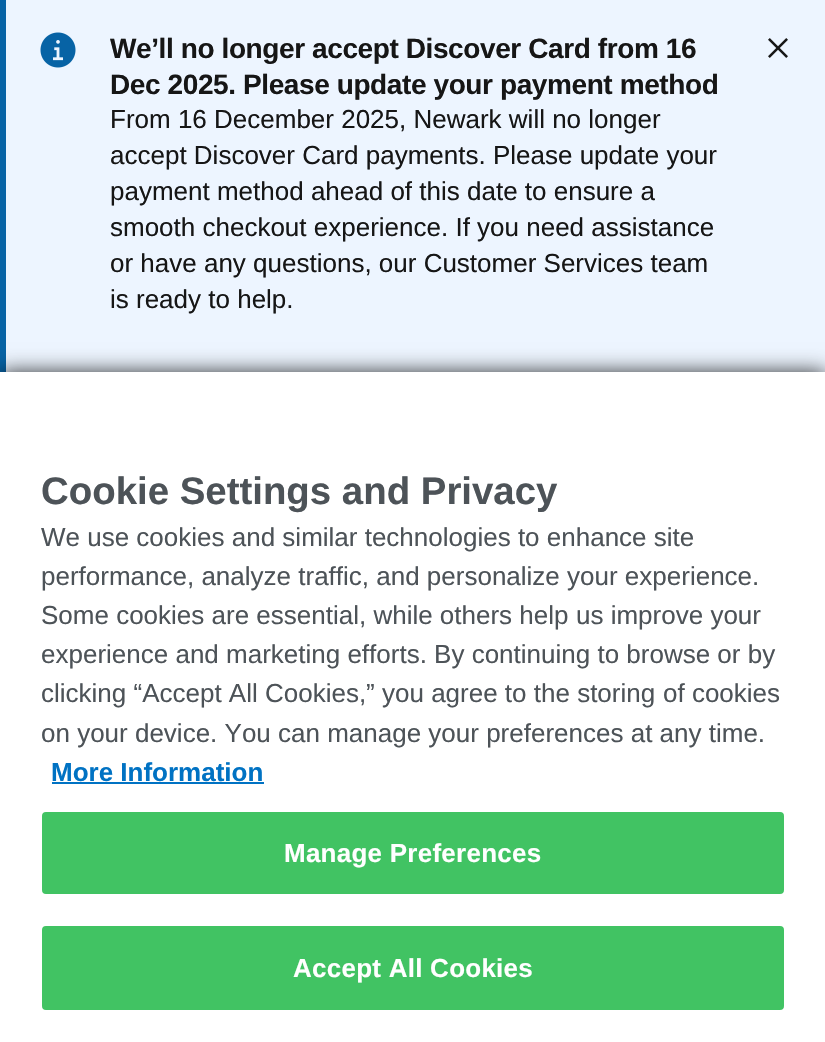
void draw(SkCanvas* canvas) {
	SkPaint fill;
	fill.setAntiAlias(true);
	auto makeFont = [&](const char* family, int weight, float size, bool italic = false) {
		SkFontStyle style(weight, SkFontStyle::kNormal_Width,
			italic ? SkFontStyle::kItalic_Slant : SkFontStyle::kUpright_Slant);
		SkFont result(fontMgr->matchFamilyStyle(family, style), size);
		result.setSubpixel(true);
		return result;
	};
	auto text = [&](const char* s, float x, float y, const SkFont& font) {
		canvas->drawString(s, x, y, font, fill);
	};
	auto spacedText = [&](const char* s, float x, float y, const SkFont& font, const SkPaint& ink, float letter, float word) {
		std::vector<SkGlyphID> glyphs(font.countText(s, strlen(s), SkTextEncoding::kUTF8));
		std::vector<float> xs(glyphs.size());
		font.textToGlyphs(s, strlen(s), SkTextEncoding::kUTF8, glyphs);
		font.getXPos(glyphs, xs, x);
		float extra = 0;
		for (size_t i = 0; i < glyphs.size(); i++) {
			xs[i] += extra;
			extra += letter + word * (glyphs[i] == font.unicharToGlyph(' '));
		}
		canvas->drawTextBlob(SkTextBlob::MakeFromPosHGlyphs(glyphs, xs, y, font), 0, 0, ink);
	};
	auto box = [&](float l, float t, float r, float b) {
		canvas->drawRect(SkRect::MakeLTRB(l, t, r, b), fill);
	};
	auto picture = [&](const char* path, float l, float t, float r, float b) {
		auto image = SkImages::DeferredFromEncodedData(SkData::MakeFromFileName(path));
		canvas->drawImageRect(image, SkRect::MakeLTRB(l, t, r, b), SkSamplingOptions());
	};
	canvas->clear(0xFFEDF5FF);
	fill.setColor(0xFF0763A5);
	box(0, 0, 6, 372);
	picture("image0.png", 40, 32, 76, 68);
	picture("image1.png", 768, 38, 788, 58);
	fill.setColor(0xCC000000);
	fill.setMaskFilter(SkMaskFilter::MakeBlur(kNormal_SkBlurStyle, 10));
	canvas->drawRect(SkRect::MakeLTRB(0, 372, 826, 1042), fill);
	fill.setMaskFilter(nullptr);
	fill.setColor(0xFFFFFFFF);
	box(0, 372, 825, 1042);
	fill.setColor(0xFF0072C3);
	box(52, 782, 264, 784);
	fill.setColor(0xFF41C363);
	canvas->drawRoundRect(SkRect::MakeLTRB(43, 813, 783, 893), 3, 3, fill);
	fill.setStyle(SkPaint::kStroke_Style);
	fill.setStrokeWidth(2);
	canvas->drawRoundRect(SkRect::MakeLTRB(43, 813, 783, 893), 3, 3, fill);
	fill.setStyle(SkPaint::kFill_Style);
	canvas->drawRoundRect(SkRect::MakeLTRB(43, 927, 783, 1009), 3, 3, fill);
	fill.setStyle(SkPaint::kStroke_Style);
	canvas->drawRoundRect(SkRect::MakeLTRB(43, 927, 783, 1009), 3, 3, fill);
	auto font1 = makeFont("Liberation Sans", 700, 28);
	fill.setStyle(SkPaint::kFill_Style);
	fill.setColor(0xFF161616);
	spacedText("We’ll no longer accept Discover Card from 16", 110, 58, font1, fill, -0.4f, 0);
	spacedText("Dec 2025. Please update your payment method", 110, 94, font1, fill, -0.4f, 0);
	auto font2 = makeFont("Liberation Sans", 400, 26);
	text("From 16 December 2025, Newark will no longer", 110, 128, font2);
	text("accept Discover Card payments. Please update your", 110, 164, font2);
	text("payment method ahead of this date to ensure a", 110, 200, font2);
	text("smooth checkout experience. If you need assistance", 110, 236, font2);
	text("or have any questions, our Customer Services team", 110, 272, font2);
	text("is ready to help.", 110, 308, font2);
	auto font3 = makeFont("Liberation Sans", 700, 38.4f);
	fill.setColor(0xFF4D5358);
	text("Cookie Settings and Privacy", 41, 504, font3);
	text("We use cookies and similar technologies to enhance site", 41, 546, font2);
	text("performance, analyze traffic, and personalize your experience.", 41, 585, font2);
	text("Some cookies are essential, while others help", 41, 624, font2);
	text("us improve your", 576, 624, font2);
	text("experience and marketing efforts. By continuing to browse or by", 41, 663, font2);
	text("clicking “Accept All Cookies,” you agree to the storing", 41, 702, font2);
	text("of cookies", 663, 702, font2);
	text("on your device. You can manage your preferences at any time.", 41, 742, font2);
	auto font4 = makeFont("Liberation Sans", 700, 26);
	fill.setColor(0xFF0072C3);
	text("More Information", 51, 781, font4);
	fill.setColor(0xFFFFFFFF);
	spacedText("Manage Preferences", 284, 862, font4, fill, 0.25f, 0);
	spacedText("Accept All Cookies", 293, 977, font4, fill, 0.25f, 0);
}
